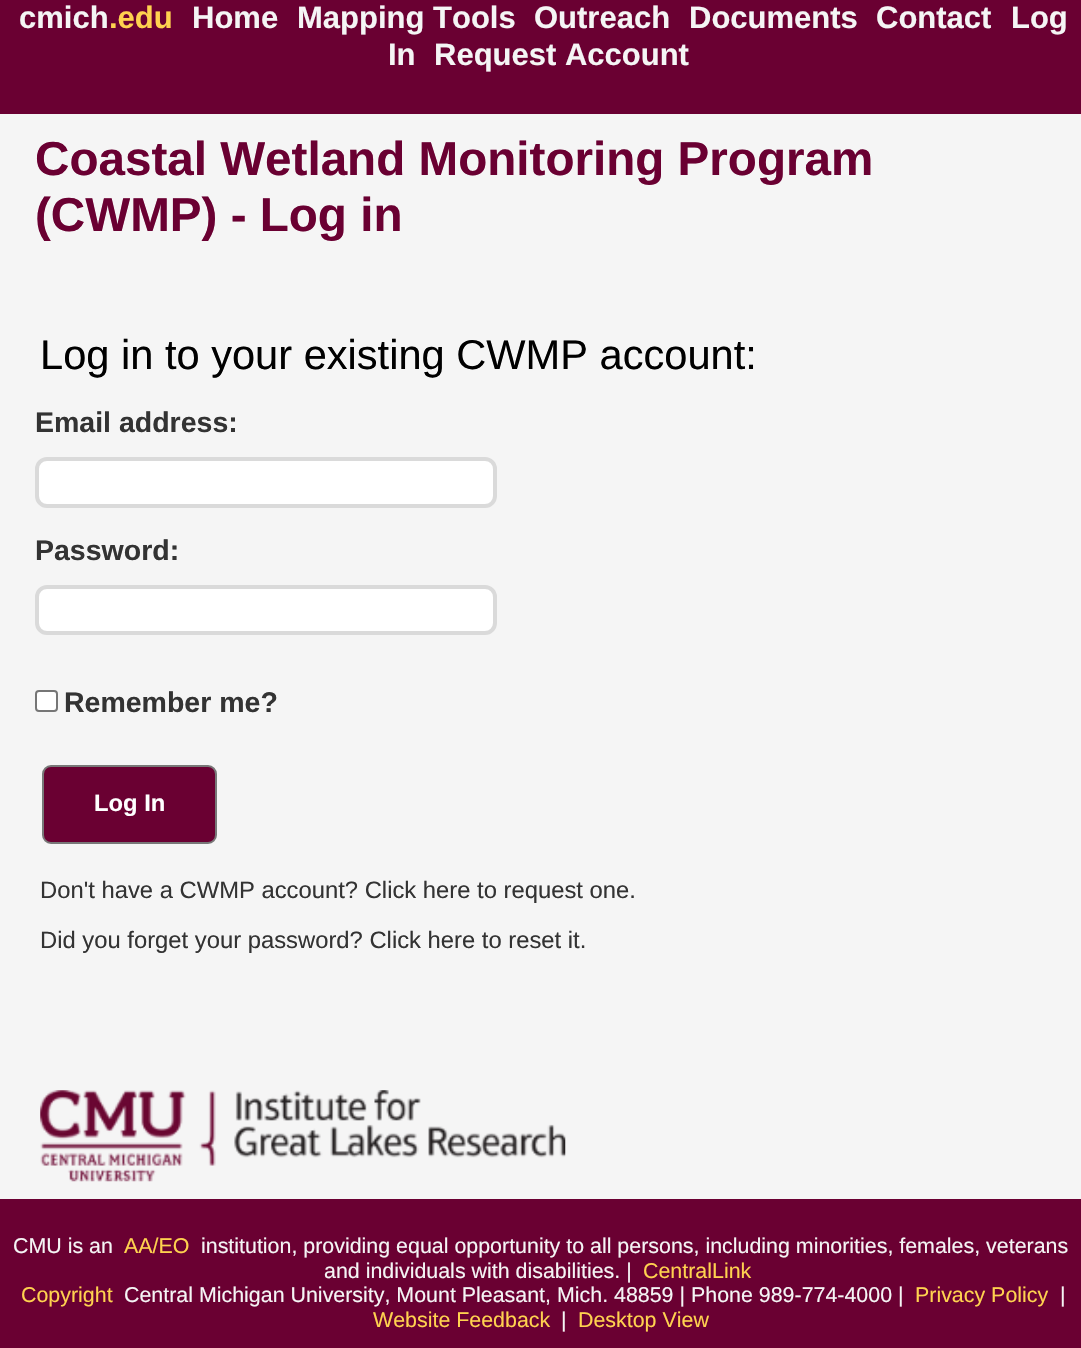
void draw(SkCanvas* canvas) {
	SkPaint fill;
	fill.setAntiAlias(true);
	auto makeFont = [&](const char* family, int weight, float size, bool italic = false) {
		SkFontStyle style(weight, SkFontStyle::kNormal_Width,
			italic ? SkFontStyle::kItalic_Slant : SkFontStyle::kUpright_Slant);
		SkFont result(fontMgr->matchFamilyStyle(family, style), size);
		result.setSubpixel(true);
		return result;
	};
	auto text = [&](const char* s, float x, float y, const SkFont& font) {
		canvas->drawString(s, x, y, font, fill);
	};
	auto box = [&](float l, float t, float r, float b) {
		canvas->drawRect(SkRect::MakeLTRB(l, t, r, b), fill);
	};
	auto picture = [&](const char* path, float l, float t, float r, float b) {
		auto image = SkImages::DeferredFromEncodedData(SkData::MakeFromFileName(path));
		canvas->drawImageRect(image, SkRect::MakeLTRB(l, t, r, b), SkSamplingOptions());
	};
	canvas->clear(0xFFF5F5F5);
	fill.setColor(0xFF6A0032);
	box(0, 0, 1081, 114);
	fill.setColor(0xFFFFFFFF);
	canvas->drawRoundRect(SkRect::MakeLTRB(37, 459, 495, 506), 10, 10, fill);
	fill.setStyle(SkPaint::kStroke_Style);
	fill.setStrokeWidth(4);
	fill.setColor(0xFFDADADA);
	canvas->drawRoundRect(SkRect::MakeLTRB(37, 459, 495, 506), 10, 10, fill);
	fill.setStyle(SkPaint::kFill_Style);
	fill.setColor(0xFFFFFFFF);
	canvas->drawRoundRect(SkRect::MakeLTRB(37, 587, 495, 633), 10, 10, fill);
	fill.setStyle(SkPaint::kStroke_Style);
	fill.setColor(0xFFDADADA);
	canvas->drawRoundRect(SkRect::MakeLTRB(37, 587, 495, 633), 10, 10, fill);
	fill.setStyle(SkPaint::kFill_Style);
	fill.setColor(0xFFFFFFFF);
	canvas->drawRoundRect(SkRect::MakeLTRB(36, 691, 57, 711), 3, 3, fill);
	fill.setStyle(SkPaint::kStroke_Style);
	fill.setStrokeWidth(2);
	fill.setColor(0xFF767676);
	canvas->drawRoundRect(SkRect::MakeLTRB(36, 691, 57, 711), 3, 3, fill);
	fill.setStyle(SkPaint::kFill_Style);
	fill.setColor(0xFF6A0032);
	canvas->drawRoundRect(SkRect::MakeLTRB(43, 766, 216, 843), 8, 8, fill);
	fill.setStyle(SkPaint::kStroke_Style);
	fill.setColor(0xFF787878);
	canvas->drawRoundRect(SkRect::MakeLTRB(43, 766, 216, 843), 8, 8, fill);
	picture("image0.png", 40, 1090, 566, 1182);
	fill.setStyle(SkPaint::kFill_Style);
	fill.setColor(0xFF6A0032);
	box(0, 1199, 1081, 1348);
	auto font1 = makeFont("Liberation Sans", 700, 31);
	fill.setColor(0xFFF5F5F5);
	text("cmich", 19, 28, font1);
	fill.setColor(0xFFFFD24F);
	text(".edu", 109, 28, font1);
	fill.setColor(0xFFF5F5F5);
	text("Home", 192, 28, font1);
	text("Mapping Tools", 297, 28, font1);
	text("Outreach", 534, 28, font1);
	text("Documents", 689, 28, font1);
	text("Contact", 876, 28, font1);
	text("Log", 1011, 28, font1);
	text("In", 388, 65, font1);
	text("Request Account", 434, 65, font1);
	auto font2 = makeFont("Liberation Sans", 700, 47.6f);
	fill.setColor(0xFF6A0032);
	text("Coastal Wetland Monitoring Program", 35, 175, font2);
	text("(CWMP) - Log in", 35, 231, font2);
	auto font3 = makeFont("Liberation Sans", 400, 41.6f);
	fill.setColor(0xFF000000);
	text("Log in to your existing CWMP account:", 40, 369, font3);
	auto font4 = makeFont("Liberation Sans", 700, 28.5f);
	fill.setColor(0xFF333333);
	text("Email address:", 35, 432, font4);
	text("Password:", 35, 560, font4);
	text("Remember me?", 64, 712, font4);
	auto font5 = makeFont("Liberation Sans", 700, 23.8f);
	fill.setColor(0xFFFFFFFF);
	text("Log In", 94, 811, font5);
	auto font6 = makeFont("Liberation Sans", 400, 23.8f);
	fill.setColor(0xFF333333);
	text("Don't have a CWMP account? Click here to request one.", 40, 898, font6);
	text("Did you forget your password? Click here to reset it.", 40, 948, font6);
	auto font7 = makeFont("Liberation Sans", 400, 21.4f);
	fill.setColor(0xFFF5F5F5);
	text("CMU is an", 13, 1253, font7);
	fill.setColor(0xFFFFD24F);
	text("AA/EO", 124, 1253, font7);
	fill.setColor(0xFFF5F5F5);
	text("institution, providing equal opportunity to all persons, including minorities, females, veterans", 201, 1253, font7);
	text("and individuals with disabilities. |", 324, 1278, font7);
	fill.setColor(0xFFFFD24F);
	text("CentralLink", 643, 1278, font7);
	text("Copyright", 21, 1302, font7);
	fill.setColor(0xFFF5F5F5);
	text("Central Michigan University, Mount Pleasant, Mich. 48859 | Phone 989-774-4000 |", 124, 1302, font7);
	fill.setColor(0xFFFFD24F);
	text("Privacy Policy", 915, 1302, font7);
	fill.setColor(0xFFF5F5F5);
	text("|", 1060, 1302, font7);
	fill.setColor(0xFFFFD24F);
	text("Website Feedback", 373, 1327, font7);
	fill.setColor(0xFFF5F5F5);
	text("|", 561, 1327, font7);
	fill.setColor(0xFFFFD24F);
	text("Desktop View", 578, 1327, font7);
}
